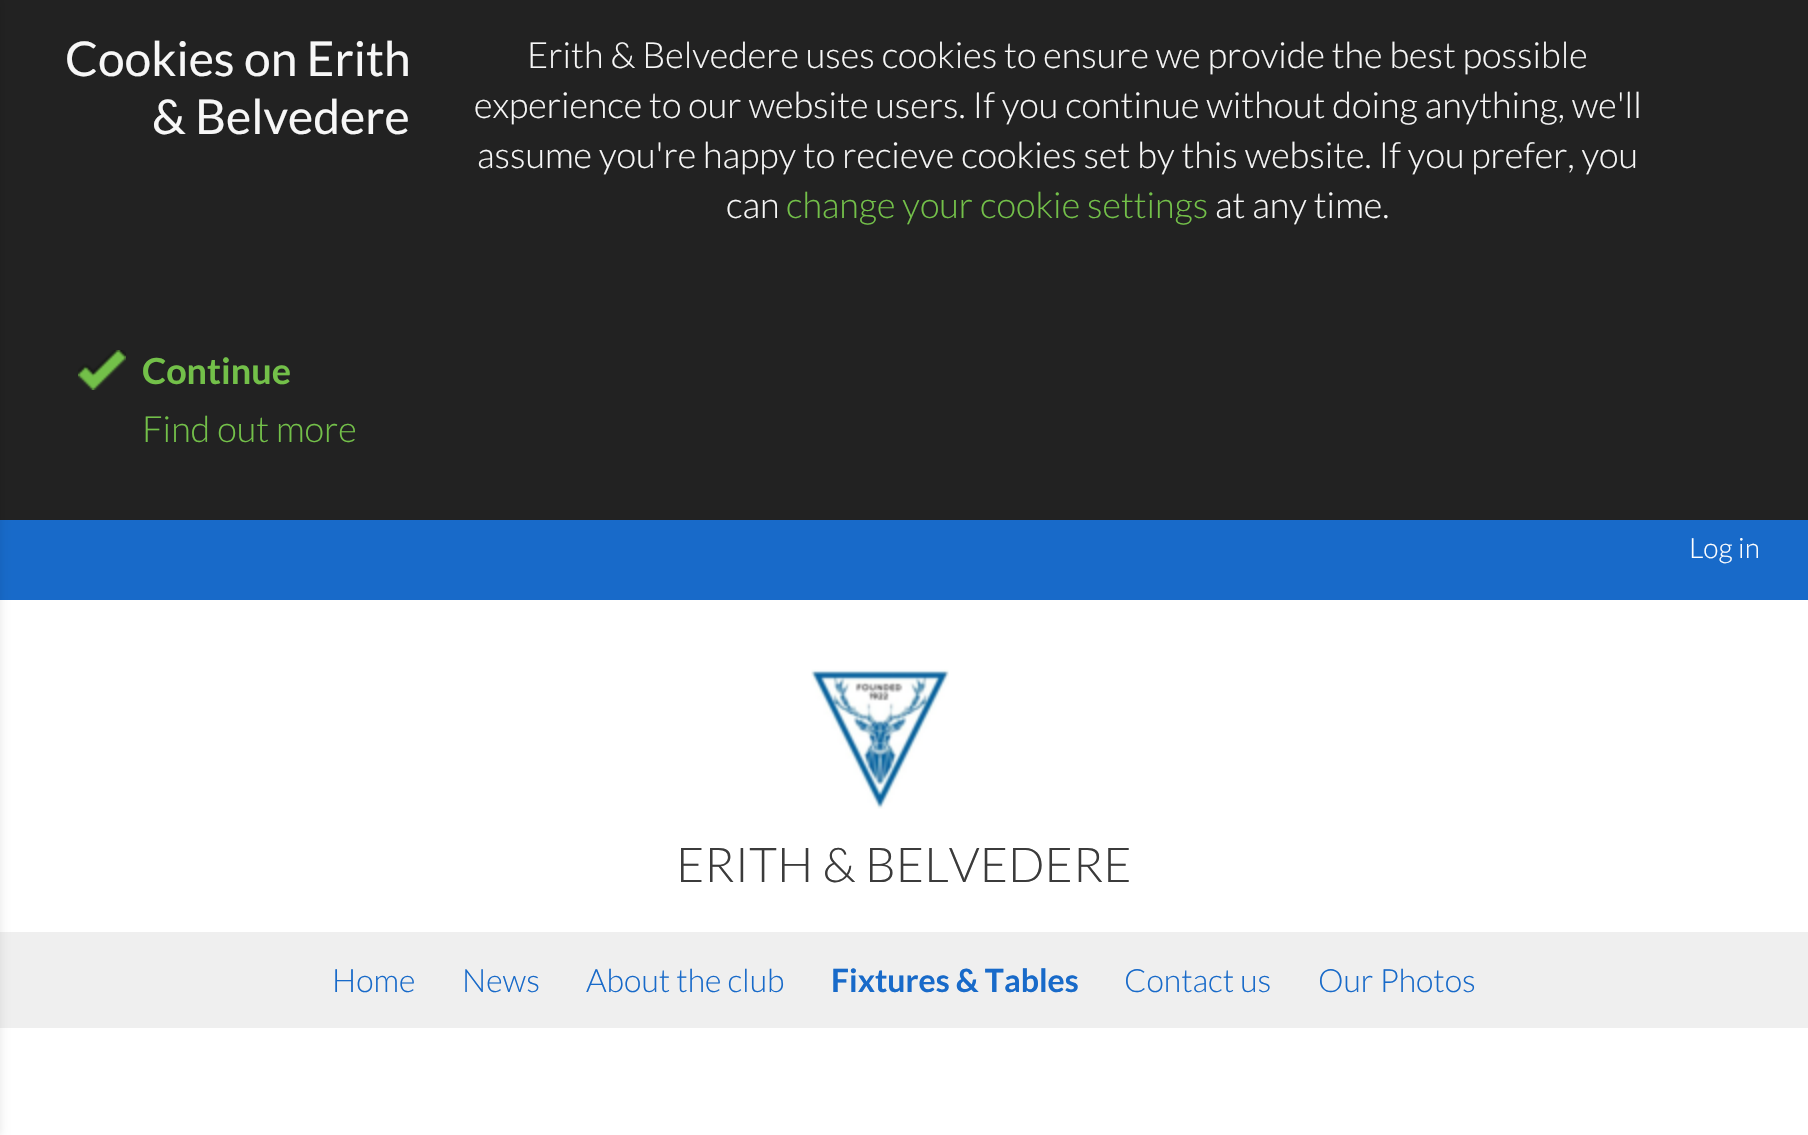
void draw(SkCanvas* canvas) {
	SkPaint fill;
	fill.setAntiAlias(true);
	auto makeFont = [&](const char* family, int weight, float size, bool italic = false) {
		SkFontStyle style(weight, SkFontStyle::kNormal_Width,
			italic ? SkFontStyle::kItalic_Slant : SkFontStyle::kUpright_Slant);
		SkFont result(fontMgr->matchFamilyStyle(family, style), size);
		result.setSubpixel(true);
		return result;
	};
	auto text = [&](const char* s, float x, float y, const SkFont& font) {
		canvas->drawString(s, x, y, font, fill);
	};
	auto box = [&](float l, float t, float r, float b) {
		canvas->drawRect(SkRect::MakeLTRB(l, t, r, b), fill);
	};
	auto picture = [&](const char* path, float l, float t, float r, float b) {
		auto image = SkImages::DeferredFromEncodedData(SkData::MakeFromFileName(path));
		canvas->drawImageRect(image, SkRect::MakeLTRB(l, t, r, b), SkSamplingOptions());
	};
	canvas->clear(0xFF222222);
	fill.setColor(0xFFFFFFFF);
	box(0, 600, 1808, 1135);
	fill.setColor(0xFF186AC9);
	box(0, 520, 1808, 600);
	fill.setColor(0xFFEFEFEF);
	box(0, 932, 1808, 1028);
	fill.setColor(0x1A000000);
	fill.setMaskFilter(SkMaskFilter::MakeBlur(kNormal_SkBlurStyle, 5));
	canvas->drawRect(SkRect::MakeLTRB(-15, 0, 0, 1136), fill);
	fill.setMaskFilter(nullptr);
	picture("image0.png", 78, 350, 126, 390);
	picture("image1.png", 811, 669, 949, 809);
	auto font1 = makeFont("Lato", 400, 48);
	fill.setColor(0xFFF7F7F7);
	text("Cookies on Erith", 65, 76, font1);
	text("& Belvedere", 152, 134, font1);
	auto font2 = makeFont("Lato", 300, 36);
	text("Erith & Belvedere uses cookies to ensure we provide the best possible", 527, 68, font2);
	text("experience to our website users. If you continue without doing anything, we'll", 474, 118, font2);
	text("assume you're happy to recieve cookies set by this website. If you prefer, you", 477, 168, font2);
	text("can", 726, 218, font2);
	fill.setColor(0xFF73C049);
	text("change your cookie settings", 786, 218, font2);
	fill.setColor(0xFFF7F7F7);
	text("at any time.", 1215, 218, font2);
	auto font3 = makeFont("Lato", 700, 36);
	fill.setColor(0xFF73C049);
	text("Continue", 142, 384, font3);
	text("Find out more", 142, 442, font2);
	auto font4 = makeFont("Lato", 300, 28);
	fill.setColor(0xFFFFFFFF);
	text("Log in", 1689, 558, font4);
	auto font5 = makeFont("Lato", 300, 48);
	fill.setColor(0xFF3B3B3B);
	text("ERITH & BELVEDERE", 676, 882, font5);
	auto font6 = makeFont("Lato", 300, 32);
	fill.setColor(0xFF186AC9);
	text("Home", 332, 992, font6);
	text("News", 462, 992, font6);
	text("About the club", 586, 992, font6);
	auto font7 = makeFont("Lato", 700, 32);
	text("Fixtures & Tables", 831, 992, font7);
	text("Contact us", 1124, 992, font6);
	text("Our Photos", 1318, 992, font6);
}
